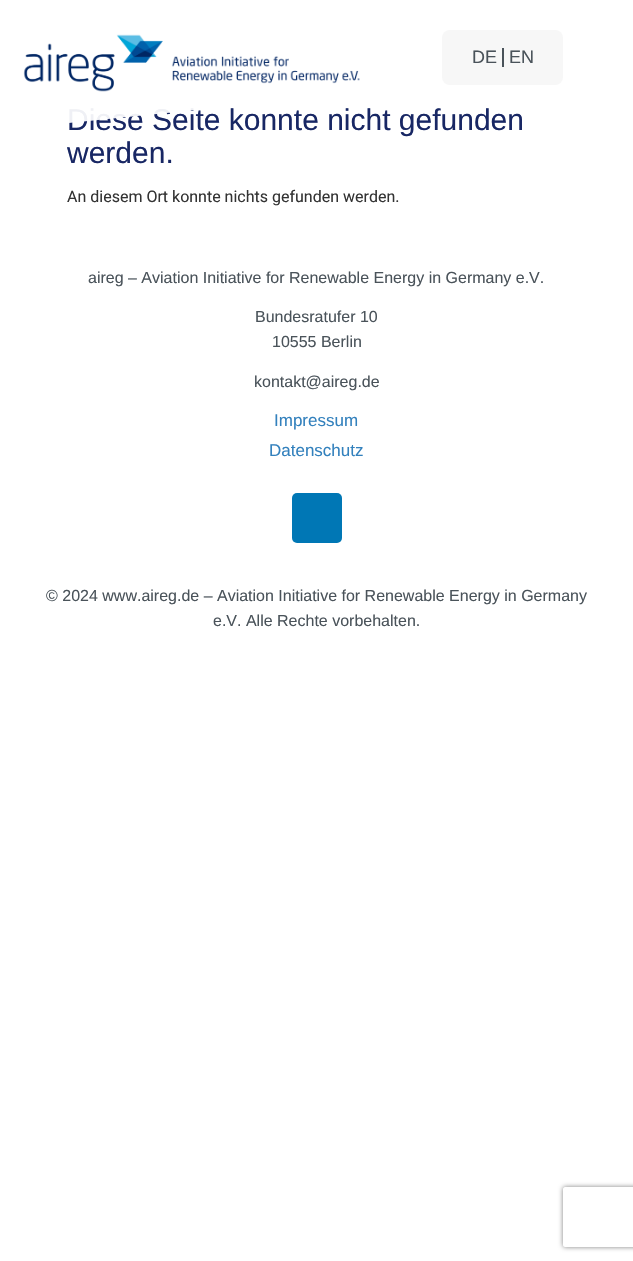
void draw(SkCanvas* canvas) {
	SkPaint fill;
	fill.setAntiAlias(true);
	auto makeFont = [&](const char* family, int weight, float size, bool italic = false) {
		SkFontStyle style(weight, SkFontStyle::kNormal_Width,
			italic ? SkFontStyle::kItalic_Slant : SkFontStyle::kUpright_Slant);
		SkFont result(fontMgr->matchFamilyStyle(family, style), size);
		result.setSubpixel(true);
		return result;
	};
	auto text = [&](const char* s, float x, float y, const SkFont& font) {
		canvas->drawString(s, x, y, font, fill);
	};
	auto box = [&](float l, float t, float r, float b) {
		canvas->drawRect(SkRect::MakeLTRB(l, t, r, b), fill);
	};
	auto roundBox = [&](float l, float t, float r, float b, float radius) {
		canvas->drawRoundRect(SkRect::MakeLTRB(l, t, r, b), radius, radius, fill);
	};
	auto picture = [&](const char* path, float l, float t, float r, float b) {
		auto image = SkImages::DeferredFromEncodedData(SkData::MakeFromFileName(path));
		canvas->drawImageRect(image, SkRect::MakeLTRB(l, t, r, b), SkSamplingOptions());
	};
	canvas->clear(0xFFFFFFFF);
	picture("image0.png", 23, 34, 360, 92);
	fill.setColor(0xFFF7F7F7);
	roundBox(442, 30, 563, 85, 8);
	fill.setColor(0xFF4A535A);
	box(502, 48, 504, 67);
	fill.setColor(0xFF0077B5);
	roundBox(292, 493, 342, 543, 5);
	canvas->save();
	canvas->clipPath(SkPathBuilder(SkPathFillType::kEvenOdd).moveTo(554, 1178).lineTo(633, 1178).lineTo(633, 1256).lineTo(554, 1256).close().moveTo(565, 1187).lineTo(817, 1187).cubicTo(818, 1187, 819, 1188, 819, 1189).lineTo(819, 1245).cubicTo(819, 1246, 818, 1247, 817, 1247).lineTo(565, 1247).cubicTo(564, 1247, 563, 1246, 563, 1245).lineTo(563, 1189).cubicTo(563, 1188, 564, 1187, 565, 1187).close().detach(), true);
	fill.setColor(0xFF808080);
	fill.setMaskFilter(SkMaskFilter::MakeBlur(kNormal_SkBlurStyle, 2.5f));
	canvas->drawRoundRect(SkRect::MakeLTRB(563, 1187, 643, 1247), 2, 2, fill);
	fill.setMaskFilter(nullptr);
	canvas->restore();
	auto font1 = makeFont("Liberation Sans", 400, 18);
	fill.setColor(0xFF4A535A);
	text("DE", 472, 63, font1);
	text("EN", 509, 63, font1);
	auto font2 = makeFont("Liberation Sans", 400, 30);
	fill.setColor(0xFF182764);
	text("Diese Seite konnte nicht gefunden", 67, 130, font2);
	fill.setColor(0xEDFFFFFF);
	canvas->drawPath(SkPathBuilder().moveTo(464, 96).cubicTo(302, 92, 142, 119, -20, 131).cubicTo(-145, 141, -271, 144, -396, 141).cubicTo(-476, 139, -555, 135, -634, 128).lineTo(-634, 93).lineTo(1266, 93).lineTo(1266, 108).cubicTo(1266, 108, 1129, 124, 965, 123).cubicTo(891, 123, 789, 120, 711, 112).cubicTo(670, 108, 611, 103, 559, 100).cubicTo(507, 97, 484, 97, 464, 96).close().detach(), fill);
	fill.setColor(0xFF182764);
	text("werden.", 67, 163, font2);
	auto font3 = makeFont("Roboto", 400, 16);
	fill.setColor(0xFF333333);
	text("An diesem Ort konnte nichts gefunden werden.", 67, 202, font3);
	auto font4 = makeFont("Liberation Sans", 400, 16);
	fill.setColor(0xFF4A535A);
	text("aireg – Aviation Initiative for Renewable Energy in Germany e.V.", 88, 283, font4);
	text("Bundesratufer 10", 255, 322, font4);
	text("10555 Berlin", 272, 347, font4);
	text("kontakt@aireg.de", 254, 387, font4);
	auto font5 = makeFont("Liberation Sans", 400, 17);
	fill.setColor(0xFF3381BD);
	text("Impressum", 274, 426, font5);
	text("Datenschutz", 269, 456, font5);
	fill.setColor(0xFF4A535A);
	text("© 2024 www.aireg.de – Aviation Initiative for Renewable Energy in Germany", 46, 601, font4);
	text("e.V. Alle Rechte vorbehalten.", 213, 626, font4);
}
